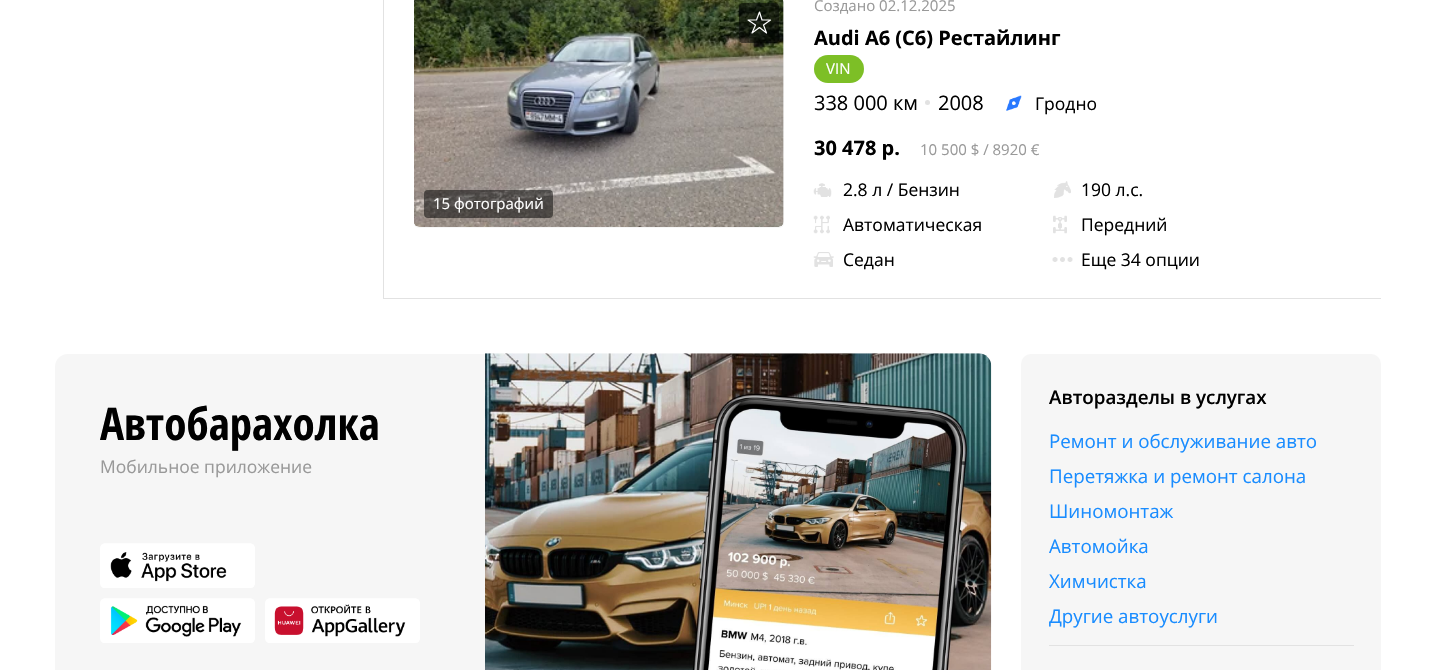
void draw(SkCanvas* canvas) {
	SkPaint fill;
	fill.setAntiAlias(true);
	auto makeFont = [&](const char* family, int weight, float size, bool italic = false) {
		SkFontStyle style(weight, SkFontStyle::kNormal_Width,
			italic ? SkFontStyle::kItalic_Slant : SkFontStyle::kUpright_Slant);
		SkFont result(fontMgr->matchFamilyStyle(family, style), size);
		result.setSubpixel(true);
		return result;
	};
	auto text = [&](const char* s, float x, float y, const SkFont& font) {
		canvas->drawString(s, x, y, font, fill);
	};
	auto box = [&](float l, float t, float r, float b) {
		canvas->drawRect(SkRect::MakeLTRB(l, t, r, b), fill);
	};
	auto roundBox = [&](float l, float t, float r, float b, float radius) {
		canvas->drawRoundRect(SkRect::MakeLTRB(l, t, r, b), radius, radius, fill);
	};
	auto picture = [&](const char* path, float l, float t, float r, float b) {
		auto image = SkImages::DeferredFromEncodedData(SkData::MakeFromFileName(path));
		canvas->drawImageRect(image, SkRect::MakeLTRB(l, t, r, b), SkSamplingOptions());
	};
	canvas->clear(0xFFFFFFFF);
	fill.setColor(0xFFE2E2E2);
	box(383, 0, 384, 299);
	box(384, 298, 1381, 299);
	fill.setColor(0xFF7DBF26);
	roundBox(814, 55, 864, 83, 14);
	fill.setColor(0xFFE2E2E2);
	canvas->drawCircle(927.5f, 102.5f, 2.5f, fill);
	picture("image0.png", 1006, 95, 1022, 111);
	fill.setColor(0xFFF6F6F6);
	roundBox(414, -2, 784, 228, 5);
	picture("image1.png", 414, 0, 784, 227);
	fill.setColor(0x80000000);
	roundBox(739, 3, 779, 43, 4);
	fill.setStyle(SkPaint::kStroke_Style);
	fill.setStrokeWidth(1.2f);
	fill.setStrokeJoin(SkPaint::kRound_Join);
	fill.setColor(0xFFFFFFFF);
	canvas->drawPath(SkPathBuilder().moveTo(759.5f, 12).lineTo(756.5f, 20).lineTo(748, 20).lineTo(755.5f, 25).lineTo(752, 33).lineTo(759.5f, 27.5f).lineTo(766.5f, 33).lineTo(763.5f, 25).lineTo(770.5f, 20).lineTo(762, 20).close().detach(), fill);
	fill.setStyle(SkPaint::kFill_Style);
	fill.setColor(0x80000000);
	roundBox(424, 190, 553, 218, 4);
	picture("image2.png", 813, 183, 832, 197);
	picture("image3.png", 813, 215, 830, 234);
	picture("image4.png", 813, 252, 834, 267);
	picture("image5.png", 1054, 181, 1071, 198);
	picture("image6.png", 1053, 215, 1067, 234);
	picture("image7.png", 1052, 257, 1073, 262);
	fill.setColor(0xFFF6F6F6);
	roundBox(55, 354, 991, 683, 13);
	picture("image8.png", 485, 353, 992, 670);
	picture("image9.png", 100, 543, 255, 588);
	picture("image10.png", 100, 598, 255, 643);
	picture("image11.png", 265, 598, 420, 643);
	roundBox(1021, 354, 1381, 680, 10);
	fill.setColor(0xFFE2E2E2);
	box(1049, 645, 1354, 646);
	auto font1 = makeFont("Open Sans", 400, 15);
	fill.setColor(0xFF999999);
	text("Создано 02.12.2025", 814, 11, font1);
	auto font2 = makeFont("Open Sans", 700, 20);
	fill.setColor(0xFF000000);
	text("Audi A6 (C6) Рестайлинг", 814, 45, font2);
	fill.setColor(0xFFFFFFFF);
	text("VIN", 826, 74, font1);
	auto font3 = makeFont("Open Sans", 400, 20);
	fill.setColor(0xFF000000);
	text("338 000 км", 814, 110, font3);
	text("2008", 938, 110, font3);
	auto font4 = makeFont("Open Sans", 400, 17.5f);
	text("Гродно", 1035, 110, font4);
	text("30 478 р.", 814, 155, font2);
	fill.setColor(0xFF999999);
	text("10 500 $ / 8920 €", 920, 155, font1);
	fill.setColor(0xFFFFFFFF);
	text("15 фотографий", 433, 209, font1);
	fill.setColor(0xFF000000);
	text("2.8 л / Бензин", 843, 196, font4);
	text("Автоматическая", 843, 231, font4);
	text("Седан", 843, 266, font4);
	text("190 л.с.", 1081, 196, font4);
	text("Передний", 1081, 231, font4);
	text("Еще 34 опции", 1081, 266, font4);
	auto font5 = makeFont("Open Sans Condensed", 700, 45);
	text("Автобарахолка", 100, 440, font5);
	fill.setColor(0xFF999999);
	text("Мобильное приложение", 100, 473, font4);
	auto font6 = makeFont("Open Sans", 600, 18.75f);
	fill.setColor(0xFF000000);
	text("Авторазделы в услугах", 1049, 404, font6);
	auto font7 = makeFont("Open Sans", 400, 18.75f);
	fill.setColor(0xFF198CFF);
	text("Ремонт и обслуживание авто", 1049, 448, font7);
	text("Перетяжка и ремонт салона", 1049, 483, font7);
	text("Шиномонтаж", 1049, 518, font7);
	text("Автомойка", 1049, 553, font7);
	text("Химчистка", 1049, 588, font7);
	text("Другие автоуслуги", 1049, 623, font7);
}
